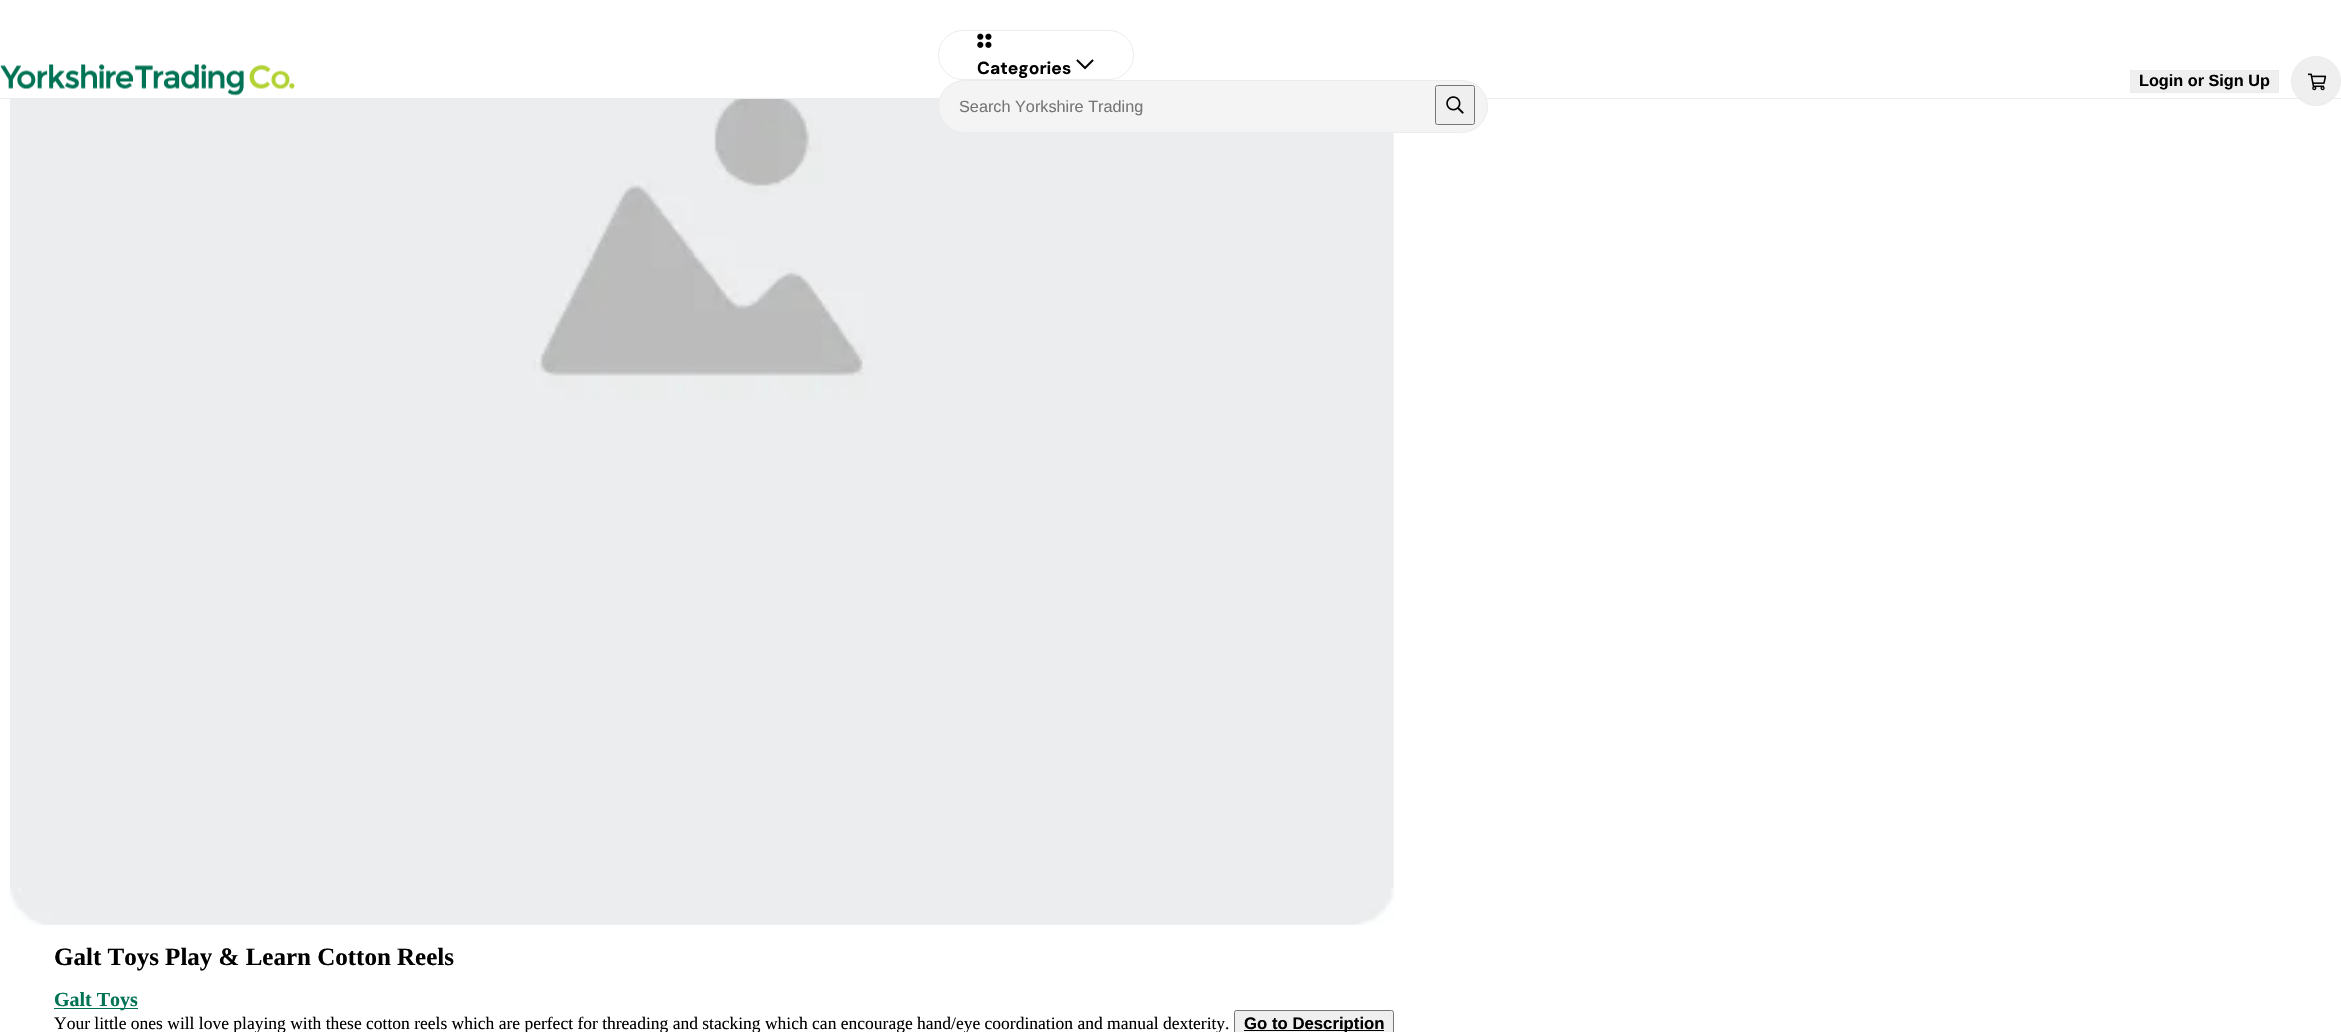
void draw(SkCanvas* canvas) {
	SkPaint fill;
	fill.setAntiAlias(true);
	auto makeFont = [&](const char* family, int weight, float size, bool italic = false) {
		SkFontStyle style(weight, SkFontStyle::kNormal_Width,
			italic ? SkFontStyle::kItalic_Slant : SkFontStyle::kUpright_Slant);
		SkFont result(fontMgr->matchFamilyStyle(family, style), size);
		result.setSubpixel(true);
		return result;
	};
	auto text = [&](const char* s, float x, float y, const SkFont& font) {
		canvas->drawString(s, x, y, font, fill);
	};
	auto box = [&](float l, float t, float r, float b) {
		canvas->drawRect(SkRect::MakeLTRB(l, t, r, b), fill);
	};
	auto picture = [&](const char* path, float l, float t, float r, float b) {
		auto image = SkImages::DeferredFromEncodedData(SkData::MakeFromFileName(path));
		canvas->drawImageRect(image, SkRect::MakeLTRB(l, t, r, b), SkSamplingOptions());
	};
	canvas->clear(0xFFFFFFFF);
	fill.setColor(0xFFEBECEE);
	box(0, 98, 2341, 99);
	picture("image0.png", 0, 64, 295, 96);
	fill.setStyle(SkPaint::kStroke_Style);
	fill.setStrokeWidth(1);
	canvas->drawRoundRect(SkRect::MakeLTRB(938.5f, 30.5f, 1133.5f, 79.5f), 24.5f, 24.5f, fill);
	picture("image1.png", 977, 33, 992, 48);
	picture("image2.png", 1076, 59, 1094, 70);
	picture("image5.png", 10, 99, 1394, 925);
	fill.setStyle(SkPaint::kFill_Style);
	fill.setColor(0xFFF4F4F4);
	canvas->drawRoundRect(SkRect::MakeLTRB(938.5f, 80.5f, 1487.5f, 132.5f), 26, 26, fill);
	fill.setStyle(SkPaint::kStroke_Style);
	fill.setColor(0xFFEBECEE);
	canvas->drawRoundRect(SkRect::MakeLTRB(938.5f, 80.5f, 1487.5f, 132.5f), 26, 26, fill);
	fill.setStyle(SkPaint::kFill_Style);
	fill.setColor(0xFFEFEFEF);
	canvas->drawRoundRect(SkRect::MakeLTRB(1435.5f, 85.5f, 1474.5f, 124.5f), 2, 2, fill);
	fill.setStyle(SkPaint::kStroke_Style);
	fill.setColor(0xFF767676);
	canvas->drawRoundRect(SkRect::MakeLTRB(1435.5f, 85.5f, 1474.5f, 124.5f), 2, 2, fill);
	picture("image3.png", 1446, 96, 1464, 114);
	fill.setStyle(SkPaint::kFill_Style);
	fill.setColor(0xFFEFEFEF);
	canvas->drawRect(SkRect::MakeLTRB(2130.5f, 70.5f, 2278.5f, 92.5f), fill);
	fill.setStyle(SkPaint::kStroke_Style);
	fill.setColor(0xFFEBECEE);
	canvas->drawRect(SkRect::MakeLTRB(2130.5f, 70.5f, 2278.5f, 92.5f), fill);
	fill.setStyle(SkPaint::kFill_Style);
	fill.setColor(0xFFEFEFEF);
	canvas->drawCircle(2316, 81, 24.5f, fill);
	fill.setStyle(SkPaint::kStroke_Style);
	fill.setColor(0xFFEBECEE);
	canvas->drawCircle(2316, 81, 24.5f, fill);
	picture("image4.png", 2308, 73, 2326, 91);
	fill.setStyle(SkPaint::kFill_Style);
	fill.setColor(0xFF007355);
	box(54, 1008, 138, 1009);
	fill.setColor(0xFFEFEFEF);
	canvas->drawRoundRect(SkRect::MakeLTRB(1234.5f, 1010.5f, 1393.5f, 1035.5f), 2, 2, fill);
	fill.setStyle(SkPaint::kStroke_Style);
	fill.setColor(0xFF767676);
	canvas->drawRoundRect(SkRect::MakeLTRB(1234.5f, 1010.5f, 1393.5f, 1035.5f), 2, 2, fill);
	fill.setStyle(SkPaint::kFill_Style);
	fill.setColor(0xFF000000);
	box(1244, 1030, 1384, 1031);
	auto font1 = makeFont("DM Sans", 700, 17.5f);
	text("Categories", 977, 74, font1);
	auto font2 = makeFont("Liberation Sans", 400, 16.25f);
	fill.setColor(0xFF757575);
	text("Search Yorkshire Trading", 959, 112, font2);
	auto font3 = makeFont("Liberation Sans", 700, 16.25f);
	fill.setColor(0xFF000000);
	text("Login or Sign Up", 2139, 86, font3);
	auto font4 = makeFont("Liberation Serif", 700, 25);
	text("Galt Toys Play & Learn Cotton Reels", 54, 965, font4);
	auto font5 = makeFont("Liberation Serif", 700, 20);
	fill.setColor(0xFF007355);
	text("Galt Toys", 54, 1006, font5);
	auto font6 = makeFont("Liberation Serif", 400, 17.5f);
	fill.setColor(0xFF000000);
	text("Your little ones will love playing with these cotton reels which are perfect for threading and stacking which can encourage hand/eye coordination and manual dexterity.", 54, 1029, font6);
	auto font7 = makeFont("Liberation Sans", 700, 16.75f);
	text("Go to Description", 1244, 1029, font7);
}
